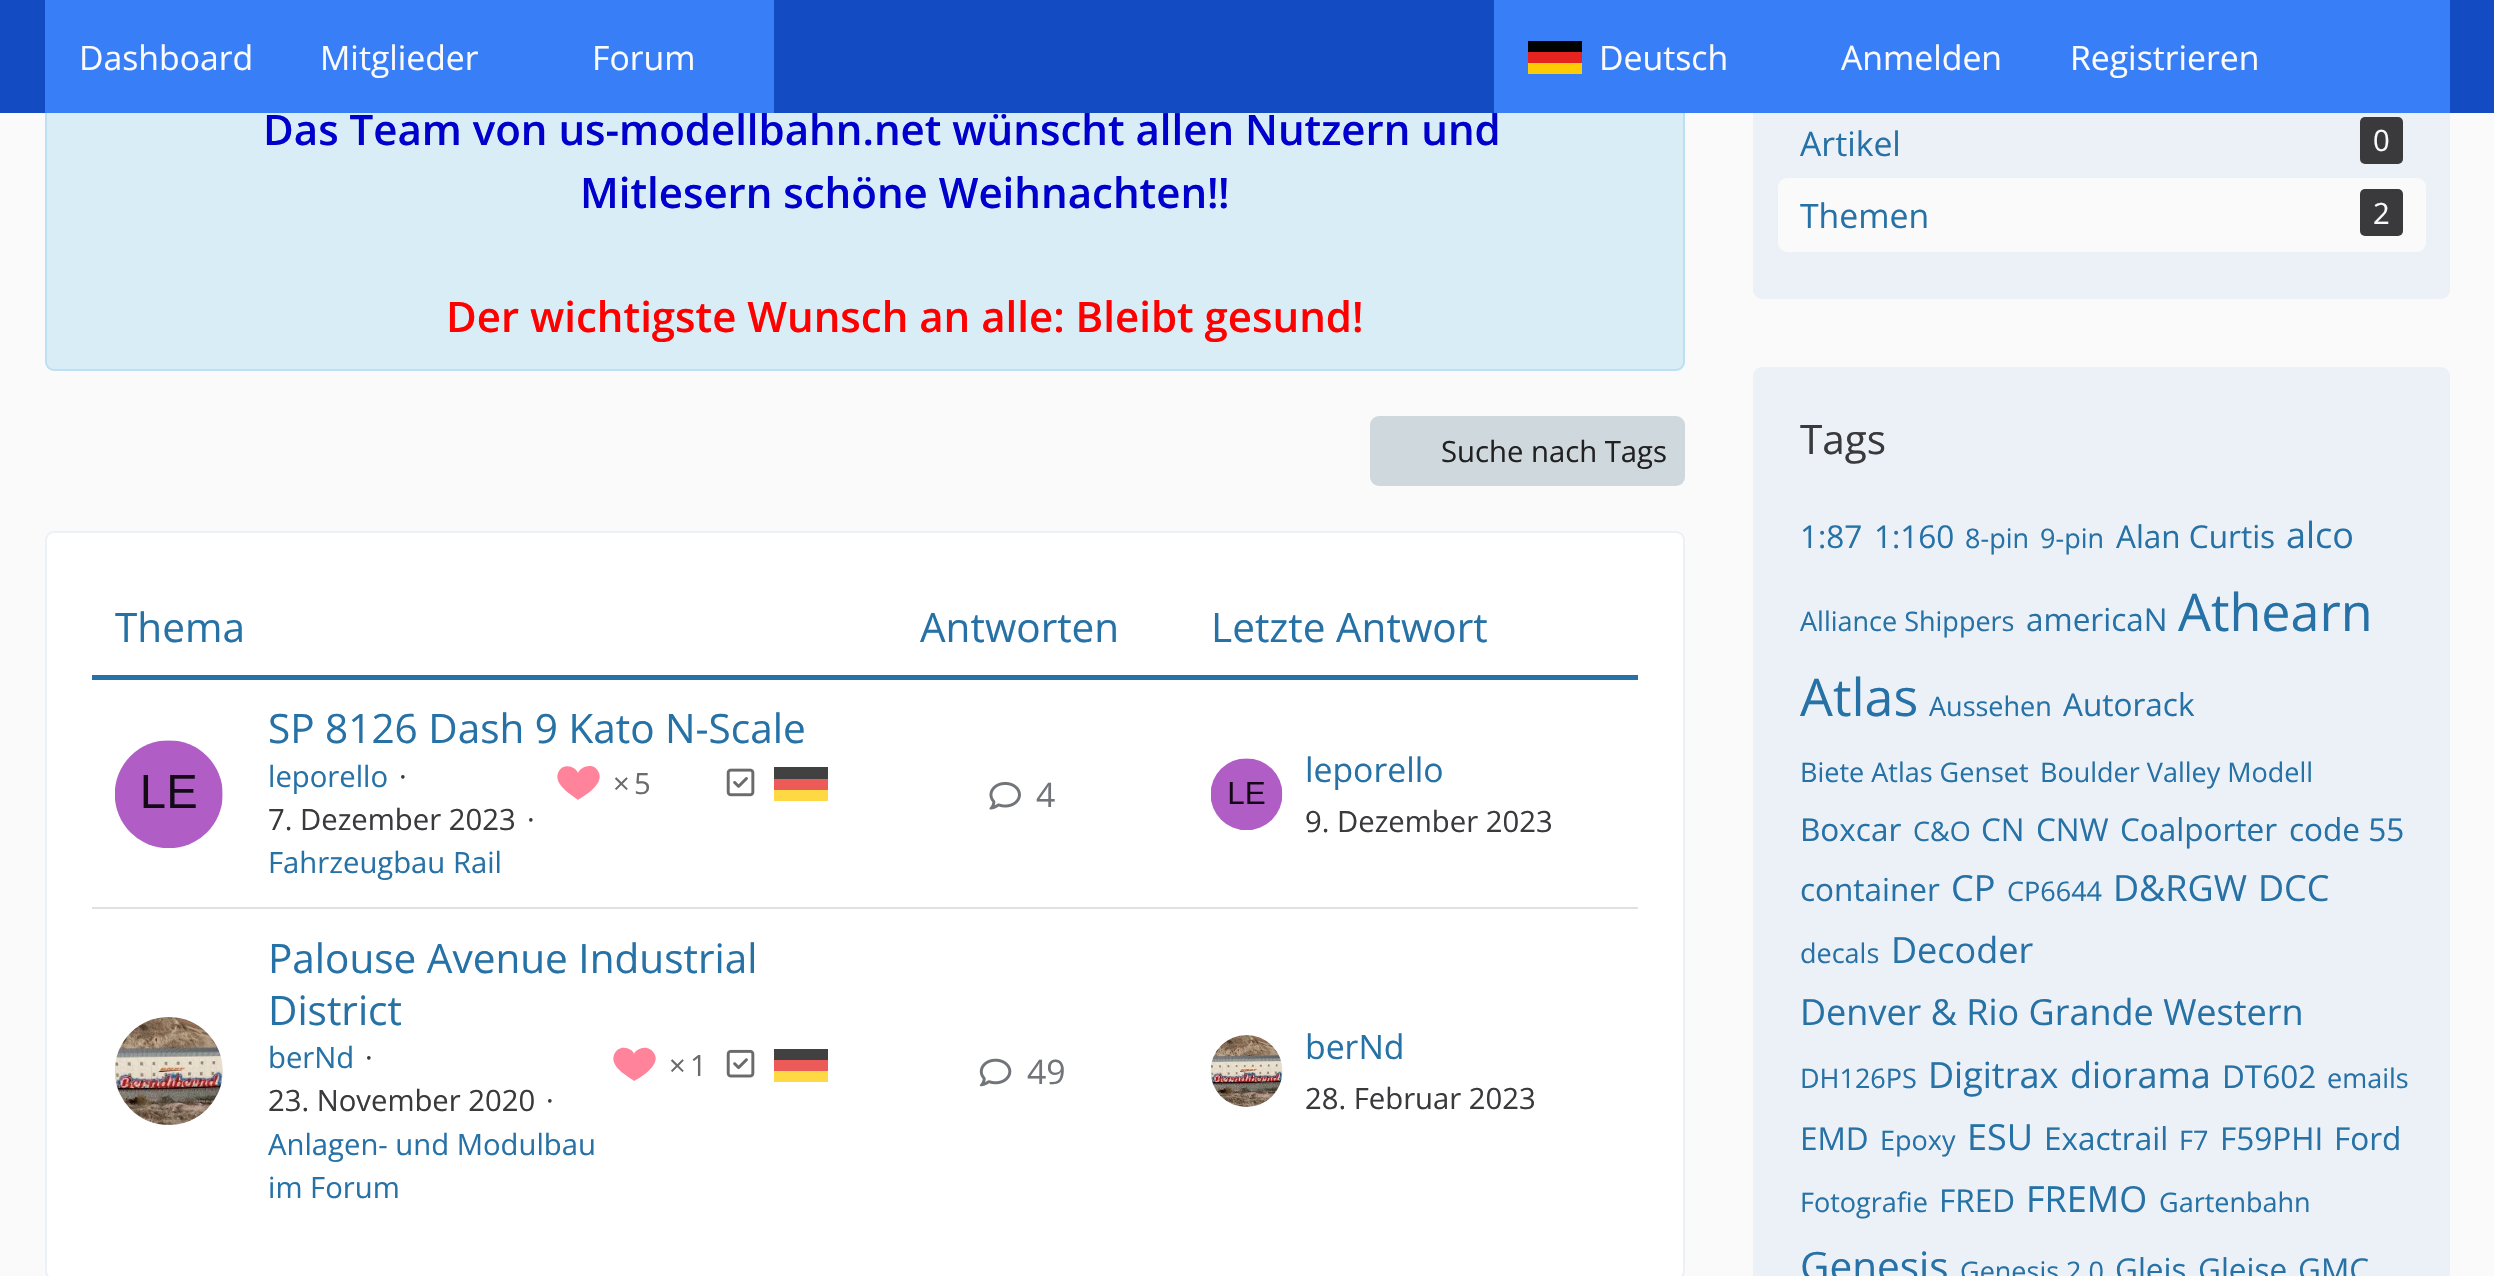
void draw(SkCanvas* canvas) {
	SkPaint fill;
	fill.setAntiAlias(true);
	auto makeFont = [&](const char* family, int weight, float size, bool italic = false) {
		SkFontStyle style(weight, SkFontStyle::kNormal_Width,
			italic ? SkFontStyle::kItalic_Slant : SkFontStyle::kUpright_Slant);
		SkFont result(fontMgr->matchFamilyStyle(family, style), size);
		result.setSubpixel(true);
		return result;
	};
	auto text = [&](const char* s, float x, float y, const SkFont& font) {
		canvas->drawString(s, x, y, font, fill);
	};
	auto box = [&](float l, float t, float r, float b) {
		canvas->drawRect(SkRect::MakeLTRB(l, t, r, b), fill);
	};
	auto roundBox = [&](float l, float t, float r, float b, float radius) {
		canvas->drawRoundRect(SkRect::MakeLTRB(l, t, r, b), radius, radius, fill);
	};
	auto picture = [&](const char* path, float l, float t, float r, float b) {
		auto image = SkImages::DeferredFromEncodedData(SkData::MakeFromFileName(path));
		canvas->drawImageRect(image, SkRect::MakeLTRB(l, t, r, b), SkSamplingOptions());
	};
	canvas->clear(0xFFFAFAFA);
	fill.setColor(0xFFD9EDF7);
	canvas->drawRoundRect(SkRect::MakeLTRB(46, 75, 1684, 370), 8, 8, fill);
	fill.setStyle(SkPaint::kStroke_Style);
	fill.setStrokeWidth(2);
	fill.setColor(0xFFBCDFF1);
	canvas->drawRoundRect(SkRect::MakeLTRB(46, 75, 1684, 370), 8, 8, fill);
	fill.setStyle(SkPaint::kFill_Style);
	fill.setColor(0xFFECF1F7);
	roundBox(1753, -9, 2450, 299, 9);
	fill.setColor(0xFF134BC2);
	box(0, 0, 2494, 113);
	fill.setColor(0xFF387EF7);
	box(45, 0, 774, 113);
	box(1494, 0, 2450, 113);
	fill.setColor(0xFF010202);
	box(1528, 41, 1582, 52);
	fill.setColor(0xFFFFCC04);
	box(1528, 63, 1582, 74);
	fill.setColor(0xFFE52420);
	box(1528, 52, 1582, 63);
	fill.setColor(0xFFCFD8DC);
	roundBox(1370, 416, 1685, 486, 9);
	fill.setColor(0xFFFFFFFF);
	canvas->drawRoundRect(SkRect::MakeLTRB(46, 532, 1684, 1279), 8, 8, fill);
	fill.setStyle(SkPaint::kStroke_Style);
	fill.setColor(0xFFECF1F7);
	canvas->drawRoundRect(SkRect::MakeLTRB(46, 532, 1684, 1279), 8, 8, fill);
	fill.setStyle(SkPaint::kFill_Style);
	fill.setColor(0xFF2671A6);
	box(92, 675, 1638, 680);
	picture("image0.png", 115, 740, 223, 848);
	fill.setColor(0xFFFF839B);
	canvas->drawPath(SkPathBuilder().moveTo(599, 773).cubicTo(594, 761, 580, 767, 578, 773).cubicTo(576, 766, 562, 762, 558, 773).cubicTo(553, 786, 577, 798, 578, 800).cubicTo(580, 798, 604, 786, 599, 773).detach(), fill);
	picture("image1.png", 726, 768, 755, 797);
	fill.setColor(0xFF414141);
	box(774, 767, 828, 779);
	fill.setColor(0xFFEC5B58);
	box(774, 779, 828, 790);
	fill.setColor(0xFFFFD943);
	box(774, 790, 828, 801);
	picture("image2.png", 989, 781, 1021, 810);
	picture("image3.png", 1211, 758, 1283, 830);
	fill.setColor(0xFFE0E0E0);
	box(92, 907, 1638, 909);
	picture("image4.png", 115, 1017, 223, 1125);
	fill.setColor(0xFFFF839B);
	canvas->drawPath(SkPathBuilder().moveTo(655, 1055).cubicTo(650, 1043, 636, 1048, 634, 1054).cubicTo(633, 1048, 618, 1043, 614, 1055).cubicTo(609, 1068, 633, 1079, 634, 1081).cubicTo(636, 1080, 660, 1067, 655, 1055).detach(), fill);
	picture("image5.png", 726, 1049, 755, 1078);
	fill.setColor(0xFF414141);
	box(774, 1049, 828, 1060);
	fill.setColor(0xFFEC5B58);
	box(774, 1060, 828, 1071);
	fill.setColor(0xFFFFD943);
	box(774, 1071, 828, 1082);
	picture("image6.png", 979, 1058, 1012, 1087);
	picture("image7.png", 1210, 1035, 1283, 1107);
	fill.setColor(0xFF3A3A3D);
	roundBox(2360, 117, 2403, 164, 5);
	fill.setColor(0xFFFAFAFA);
	roundBox(1778, 178, 2426, 252, 9);
	fill.setColor(0xFF3A3A3D);
	roundBox(2360, 189, 2403, 236, 5);
	fill.setColor(0xFFECF1F7);
	roundBox(1753, 367, 2450, 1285, 9);
	auto font1 = makeFont("Open Sans", 400, 33.75f);
	fill.setColor(0xFFFAFAFA);
	text("Dashboard", 79, 70, font1);
	text("Mitglieder", 320, 70, font1);
	text("Forum", 592, 70, font1);
	text("Deutsch", 1599, 70, font1);
	text("Anmelden", 1841, 70, font1);
	text("Registrieren", 2070, 70, font1);
	auto font2 = makeFont("Open Sans", 600, 42);
	fill.setColor(0xFF0000CD);
	text("Das Team von us-modellbahn.net wünscht allen Nutzern und", 263, 145, font2);
	text("Mitlesern schöne Weihnachten!", 580, 208, font2);
	text("!", 1218, 208, font2);
	fill.setColor(0xFFFF0000);
	text("Der wichtigste Wunsch an alle: Bleibt gesund!", 446, 332, font2);
	auto font3 = makeFont("Open Sans", 400, 29.25f);
	fill.setColor(0xFF212121);
	text("Suche nach Tags", 1441, 462, font3);
	auto font4 = makeFont("Open Sans", 400, 40.5f);
	fill.setColor(0xFF2671A6);
	text("Thema", 115, 642, font4);
	text("Antworten", 920, 642, font4);
	text("Letzte Antwort", 1211, 642, font4);
	text("SP 8126 Dash 9 Kato N-Scale", 268, 743, font4);
	text("leporello", 268, 787, font3);
	fill.setColor(0xFF3A3A3D);
	text("·", 399, 787, font3);
	text("7. Dezember 2023", 268, 830, font3);
	text("·", 527, 830, font3);
	fill.setColor(0xFF2671A6);
	text("Fahrzeugbau Rail", 268, 873, font3);
	fill.setColor(0xFF6B6B6E);
	text("×", 613, 794, font3);
	text("5", 634, 794, font3);
	fill.setColor(0xFF71757A);
	text("4", 1036, 807, font1);
	fill.setColor(0xFF2671A6);
	text("leporello", 1305, 782, font1);
	fill.setColor(0xFF3A3A3D);
	text("9. Dezember 2023", 1305, 832, font3);
	fill.setColor(0xFF2671A6);
	text("Palouse Avenue Industrial", 268, 973, font4);
	text("District", 268, 1025, font4);
	text("berNd", 268, 1068, font3);
	fill.setColor(0xFF3A3A3D);
	text("·", 365, 1068, font3);
	text("23. November 2020", 268, 1111, font3);
	text("·", 546, 1111, font3);
	fill.setColor(0xFF2671A6);
	text("Anlagen- und Modulbau", 268, 1155, font3);
	text("im Forum", 268, 1198, font3);
	fill.setColor(0xFF6B6B6E);
	text("×", 669, 1076, font3);
	text("1", 690, 1076, font3);
	fill.setColor(0xFF71757A);
	text("49", 1027, 1084, font1);
	fill.setColor(0xFF2671A6);
	text("berNd", 1305, 1059, font1);
	fill.setColor(0xFF3A3A3D);
	text("28. Februar 2023", 1305, 1109, font3);
	fill.setColor(0xFF2671A6);
	text("Artikel", 1800, 156, font1);
	fill.setColor(0xFFFAFAFA);
	text("0", 2373, 151, font3);
	fill.setColor(0xFF2671A6);
	text("Themen", 1800, 228, font1);
	fill.setColor(0xFFFAFAFA);
	text("2", 2373, 224, font3);
	fill.setColor(0xFF3A3A3D);
	text("Tags", 1800, 454, font4);
	auto font5 = makeFont("Open Sans", 400, 31.5f);
	fill.setColor(0xFF2671A6);
	text("1:87", 1800, 548, font5);
	text("1:160", 1874, 548, font5);
	auto font6 = makeFont("Open Sans", 400, 27);
	text("8-pin", 1965, 548, font6);
	text("9-pin", 2040, 548, font6);
	text("Alan Curtis", 2116, 548, font5);
	auto font7 = makeFont("Open Sans", 400, 36);
	text("alco", 2286, 548, font7);
	text("Alliance Shippers", 1800, 631, font6);
	text("americaN", 2026, 631, font5);
	auto font8 = makeFont("Open Sans", 400, 52);
	text("Athearn", 2178, 631, font8);
	text("Atlas", 1800, 716, font8);
	text("Aussehen", 1929, 716, font6);
	text("Autorack", 2063, 716, font5);
	text("Biete Atlas Genset", 1800, 782, font6);
	text("Boulder Valley Modell", 2040, 782, font6);
	text("Boxcar", 1800, 841, font5);
	text("C&O", 1913, 841, font6);
	text("CN", 1981, 841, font5);
	text("CNW", 2036, 841, font5);
	text("Coalporter", 2120, 841, font5);
	text("code 55", 2289, 841, font5);
	text("container", 1800, 901, font5);
	text("CP", 1951, 901, font7);
	text("CP6644", 2007, 901, font6);
	text("D&RGW", 2113, 901, font7);
	text("DCC", 2258, 901, font7);
	text("decals", 1800, 963, font6);
	text("Decoder", 1891, 963, font7);
	text("Denver & Rio Grande Western", 1800, 1025, font7);
	text("DH126PS", 1800, 1088, font6);
	text("Digitrax", 1928, 1088, font7);
	text("diorama", 2070, 1088, font7);
	text("DT602", 2222, 1088, font5);
	text("emails", 2327, 1088, font6);
	text("EMD", 1800, 1150, font5);
	text("Epoxy", 1880, 1150, font6);
	text("ESU", 1967, 1150, font7);
	text("Exactrail", 2044, 1150, font5);
	text("F7", 2179, 1150, font6);
	text("F59PHI", 2220, 1150, font5);
	text("Ford", 2334, 1150, font5);
	text("Fotografie", 1800, 1212, font6);
	text("FRED", 1939, 1212, font5);
	text("FREMO", 2026, 1212, font7);
	text("Gartenbahn", 2159, 1212, font6);
	text("Genesis", 1800, 1281, font4);
	text("Genesis 2.0", 1960, 1281, font6);
	text("Gleis", 2115, 1281, font5);
	text("Gleise", 2198, 1281, font5);
	text("GMC", 2298, 1281, font5);
}
